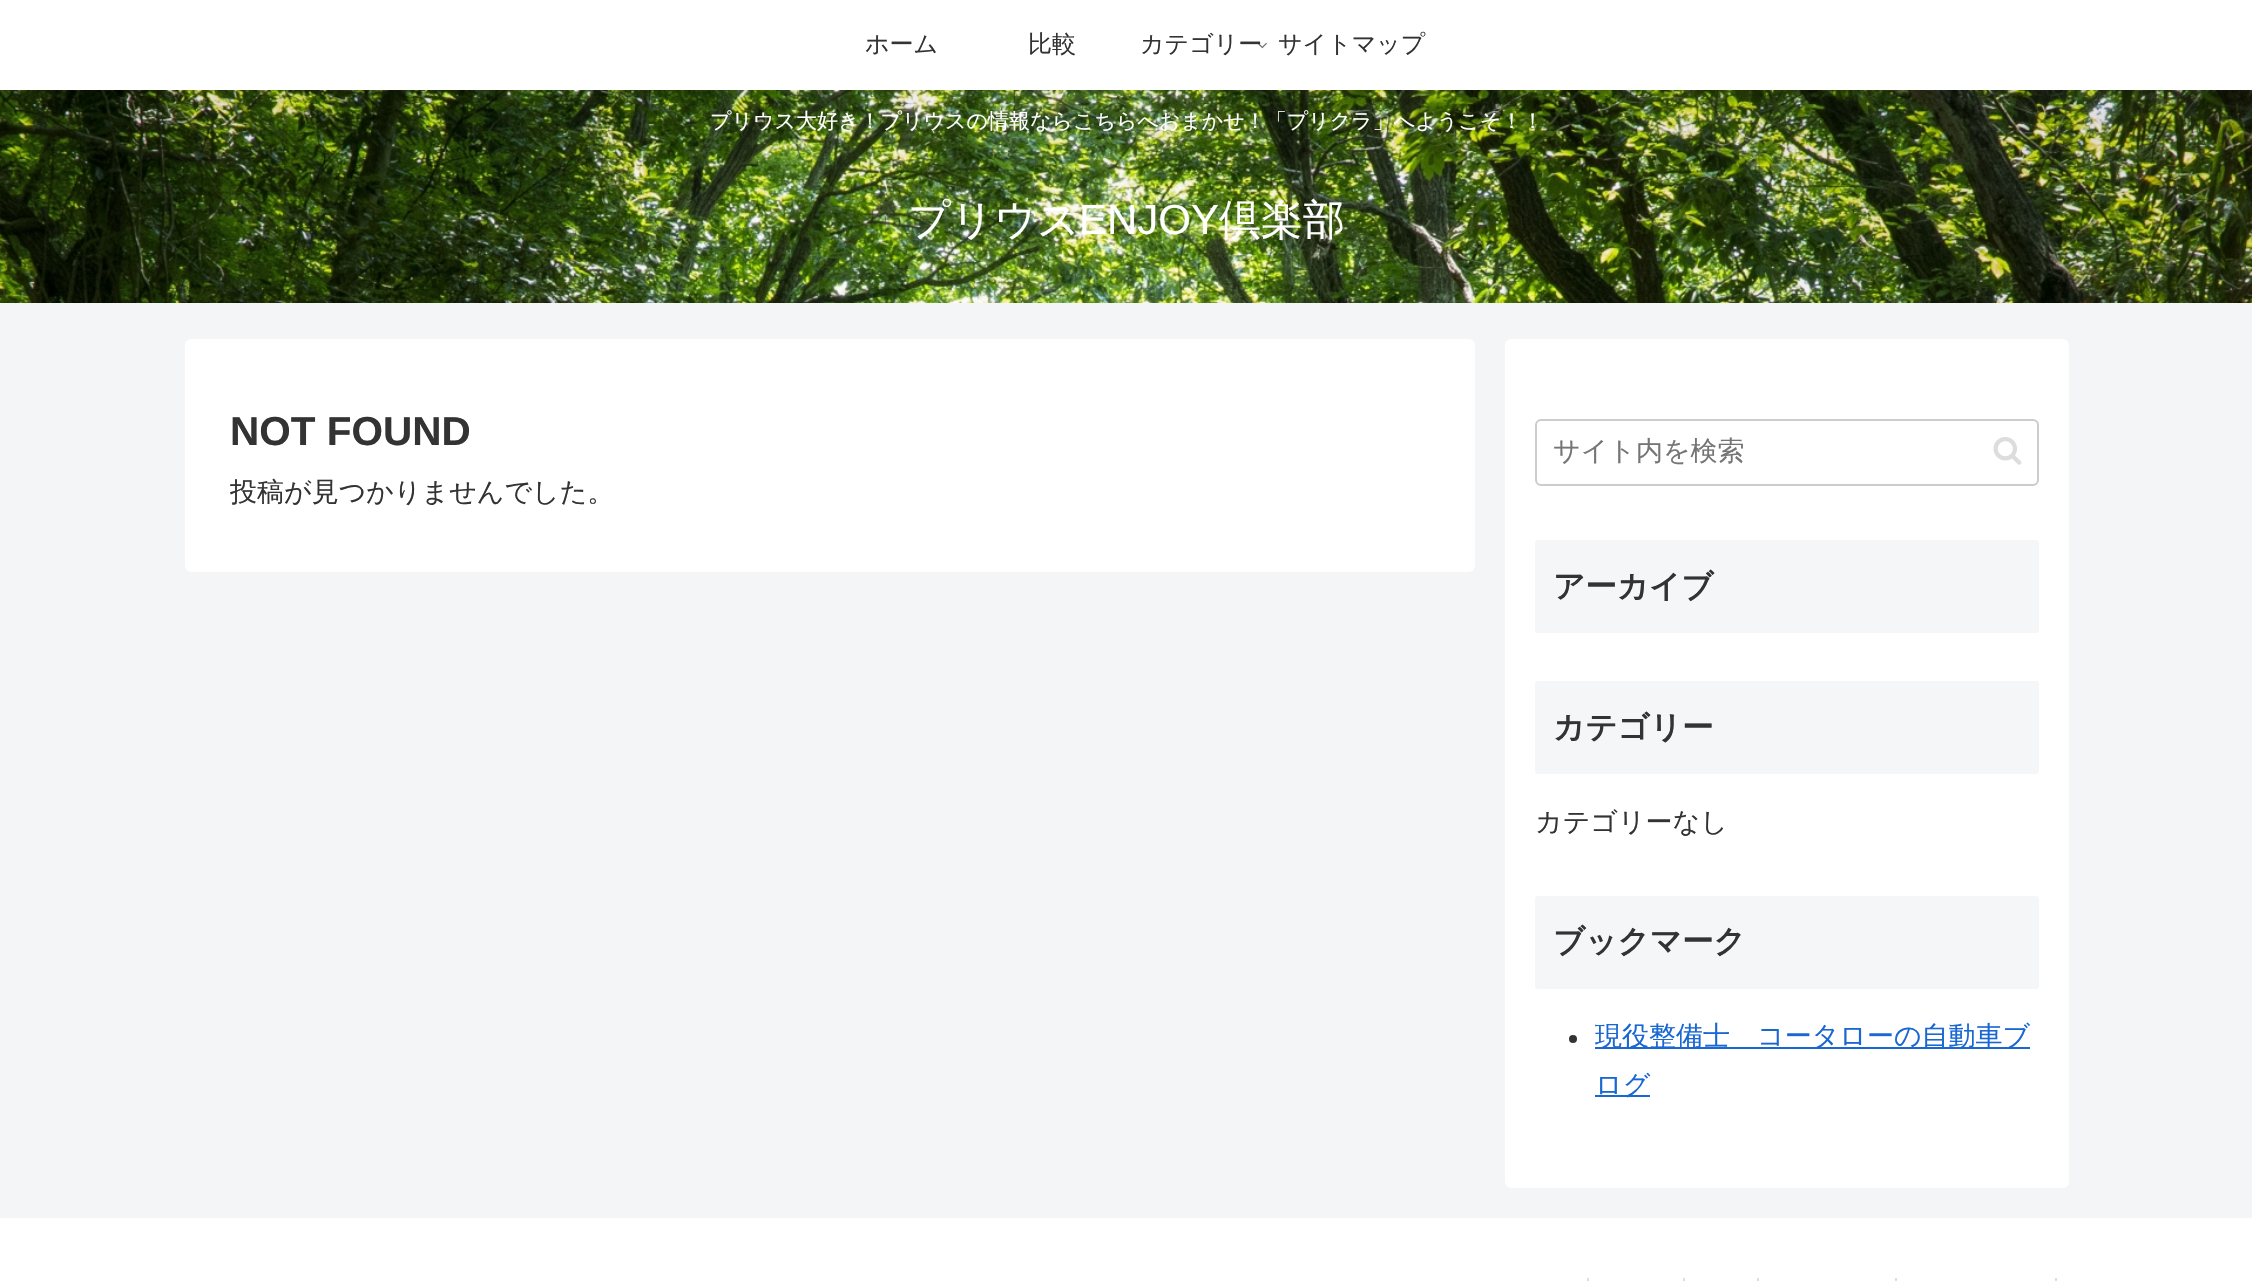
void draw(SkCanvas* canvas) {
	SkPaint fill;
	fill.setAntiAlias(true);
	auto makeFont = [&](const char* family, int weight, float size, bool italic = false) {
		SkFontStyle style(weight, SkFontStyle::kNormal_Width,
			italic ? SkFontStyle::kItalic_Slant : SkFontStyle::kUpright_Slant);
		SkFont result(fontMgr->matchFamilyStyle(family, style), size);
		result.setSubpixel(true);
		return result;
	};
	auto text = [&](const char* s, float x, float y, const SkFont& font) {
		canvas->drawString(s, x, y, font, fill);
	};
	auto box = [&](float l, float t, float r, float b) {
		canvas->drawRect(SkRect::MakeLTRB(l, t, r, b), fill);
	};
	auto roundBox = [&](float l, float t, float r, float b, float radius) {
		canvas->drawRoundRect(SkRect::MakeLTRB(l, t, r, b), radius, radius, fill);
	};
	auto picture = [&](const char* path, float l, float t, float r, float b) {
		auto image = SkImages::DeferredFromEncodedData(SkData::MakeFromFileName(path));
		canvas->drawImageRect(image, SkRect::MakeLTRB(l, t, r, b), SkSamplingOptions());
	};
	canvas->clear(0xFFF4F5F7);
	fill.setColor(0xFFFFFFFF);
	box(0, 0, 2252, 90);
	picture("image1.png", 0, 90, 2252, 303);
	roundBox(185, 339, 1475, 572, 6);
	roundBox(1505, 339, 2069, 1188, 6);
	fill.setStyle(SkPaint::kStroke_Style);
	fill.setStrokeWidth(2);
	fill.setColor(0xFFCCCCCC);
	canvas->drawRoundRect(SkRect::MakeLTRB(1536, 420, 2038, 485), 5, 5, fill);
	picture("image2.png", 1993, 437, 2022, 465);
	fill.setStyle(SkPaint::kFill_Style);
	fill.setColor(0xFFF5F6F7);
	roundBox(1535, 540, 2039, 633, 3);
	roundBox(1535, 681, 2039, 774, 3);
	roundBox(1535, 896, 2039, 989, 3);
	fill.setColor(0xFF333333);
	canvas->drawCircle(1573, 1039, 4, fill);
	fill.setColor(0xFF1967D2);
	box(1595, 1047, 2030, 1049);
	box(1595, 1095, 1650, 1097);
	fill.setColor(0xFFFFFFFF);
	box(0, 1218, 2252, 1281);
	fill.setColor(0xFFDDDDDD);
	box(1587, 1278, 1589, 1281);
	box(1683, 1278, 1685, 1281);
	box(1757, 1278, 1759, 1281);
	box(2055, 1278, 2057, 1281);
	box(1895, 1278, 1897, 1281);
	auto font1 = makeFont("WenQuanYi Zen Hei", 500, 24);
	fill.setColor(0xFF333333);
	text("ホーム", 865, 52, font1);
	text("比較", 1028, 52, font1);
	text("カテゴリー", 1140, 52, font1);
	picture("image0.png", 1258, 42, 1267, 49);
	text("サイトマップ", 1278, 52, font1);
	auto font2 = makeFont("WenQuanYi Zen Hei", 500, 21);
	fill.setColor(0xFFFFFFFF);
	text("プリウス大好き！プリウスの情報ならこちらへおまかせ！「プリクラ」へようこそ！！", 710, 128, font2);
	auto font3 = makeFont("WenQuanYi Zen Hei", 500, 42);
	text("プリウス", 908, 234, font3);
	auto font4 = makeFont("Liberation Sans", 400, 42);
	text("ENJOY", 1079, 234, font4);
	text("倶楽部", 1219, 234, font3);
	auto font5 = makeFont("Liberation Sans", 700, 40.5f);
	fill.setColor(0xFF333333);
	text("NOT FOUND", 230, 445, font5);
	auto font6 = makeFont("WenQuanYi Zen Hei", 500, 27);
	text("投稿が見つかりませんでした。", 230, 501, font6);
	fill.setColor(0xFF757575);
	text("サイト内を検索", 1553, 460, font6);
	auto font7 = makeFont("WenQuanYi Zen Hei", 700, 31.5f);
	fill.setColor(0xFF333333);
	text("アーカイブ", 1553, 597, font7);
	text("カテゴリー", 1553, 738, font7);
	text("カテゴリーなし", 1535, 831, font6);
	text("ブックマーク", 1553, 952, font7);
	fill.setColor(0xFF1967D2);
	text("現役整備士　コータローの自動車ブ", 1595, 1045, font6);
	text("ログ", 1595, 1094, font6);
}
